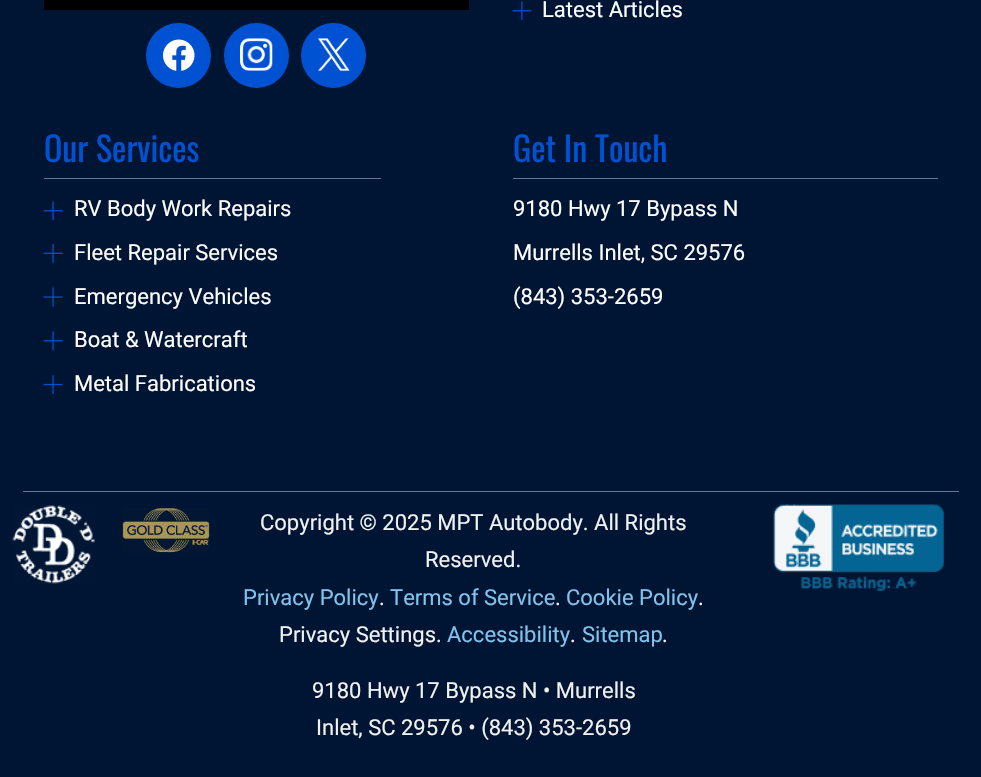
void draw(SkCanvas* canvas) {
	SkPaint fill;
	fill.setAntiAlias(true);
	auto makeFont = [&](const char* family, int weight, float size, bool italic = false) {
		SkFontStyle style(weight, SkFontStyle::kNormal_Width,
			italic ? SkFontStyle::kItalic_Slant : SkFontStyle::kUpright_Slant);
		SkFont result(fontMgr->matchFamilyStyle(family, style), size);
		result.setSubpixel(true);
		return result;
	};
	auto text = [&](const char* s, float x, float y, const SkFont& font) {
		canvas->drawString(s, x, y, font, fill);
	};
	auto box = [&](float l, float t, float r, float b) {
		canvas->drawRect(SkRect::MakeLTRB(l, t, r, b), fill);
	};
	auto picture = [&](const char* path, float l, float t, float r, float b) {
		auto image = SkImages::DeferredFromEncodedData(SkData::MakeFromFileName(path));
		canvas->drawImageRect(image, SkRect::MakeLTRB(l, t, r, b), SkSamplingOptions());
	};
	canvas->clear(0xFF001433);
	fill.setColor(0xFF617897);
	box(23, 491, 959, 492);
	fill.setColor(0xFF000000);
	box(44, 0, 469, 10);
	fill.setColor(0xFF0152D2);
	canvas->drawCircle(178.5f, 55.5f, 32.5f, fill);
	picture("image0.png", 163, 39, 195, 71);
	canvas->drawCircle(256.5f, 55.5f, 32.5f, fill);
	picture("image1.png", 240, 38, 273, 71);
	canvas->drawCircle(333.5f, 55.5f, 32.5f, fill);
	picture("image2.png", 318, 38, 350, 71);
	picture("image3.png", 512, 1, 532, 21);
	fill.setColor(0xFF617897);
	box(44, 178, 381, 179);
	picture("image4.png", 43, 201, 63, 221);
	picture("image5.png", 43, 243, 63, 263);
	picture("image6.png", 43, 287, 63, 307);
	picture("image4.png", 43, 331, 63, 351);
	picture("image7.png", 43, 375, 63, 394);
	box(513, 178, 938, 179);
	picture("image8.png", 12, 505, 95, 584);
	picture("image9.png", 122, 508, 210, 553);
	picture("image10.png", 773, 504, 944, 591);
	auto font1 = makeFont("Roboto", 400, 22);
	fill.setColor(0xFFFFFFFF);
	text("Latest Articles", 542, 17, font1);
	auto font2 = makeFont("Oswald", 400, 34);
	fill.setColor(0xFF0152D2);
	text("Our Services", 44, 162, font2);
	fill.setColor(0xFFFFFFFF);
	text("RV Body Work Repairs", 74, 216, font1);
	text("Fleet Repair Services", 74, 260, font1);
	text("Emergency Vehicles", 74, 304, font1);
	text("Boat & Watercraft", 74, 347, font1);
	text("Metal Fabrications", 74, 391, font1);
	fill.setColor(0xFF0152D2);
	text("Get In Touch", 513, 162, font2);
	fill.setColor(0xFFFFFFFF);
	text("9180 Hwy 17 Bypass N", 513, 216, font1);
	text("Murrells Inlet, SC 29576", 513, 260, font1);
	text("(843) 353-2659", 513, 304, font1);
	fill.setColor(0xFFF1F1F1);
	text("Copyright © 2025 MPT Autobody. All Rights", 260, 530, font1);
	text("Reserved.", 425, 567, font1);
	fill.setColor(0xFF80C3EC);
	text("Privacy Policy", 243, 605, font1);
	fill.setColor(0xFFF1F1F1);
	text(".", 379, 605, font1);
	fill.setColor(0xFF80C3EC);
	text("Terms of Service", 390, 605, font1);
	fill.setColor(0xFFF1F1F1);
	text(".", 555, 605, font1);
	fill.setColor(0xFF80C3EC);
	text("Cookie Policy", 566, 605, font1);
	fill.setColor(0xFFF1F1F1);
	text(".", 698, 605, font1);
	text("Privacy Settings.", 279, 642, font1);
	fill.setColor(0xFF80C3EC);
	text("Accessibility", 447, 642, font1);
	fill.setColor(0xFFF1F1F1);
	text(".", 570, 642, font1);
	fill.setColor(0xFF80C3EC);
	text("Sitemap", 582, 642, font1);
	fill.setColor(0xFFF1F1F1);
	text(".", 662, 642, font1);
	text("9180 Hwy 17 Bypass N • Murrells", 312, 698, font1);
	text("Inlet, SC 29576 • (843) 353-2659", 316, 735, font1);
}
